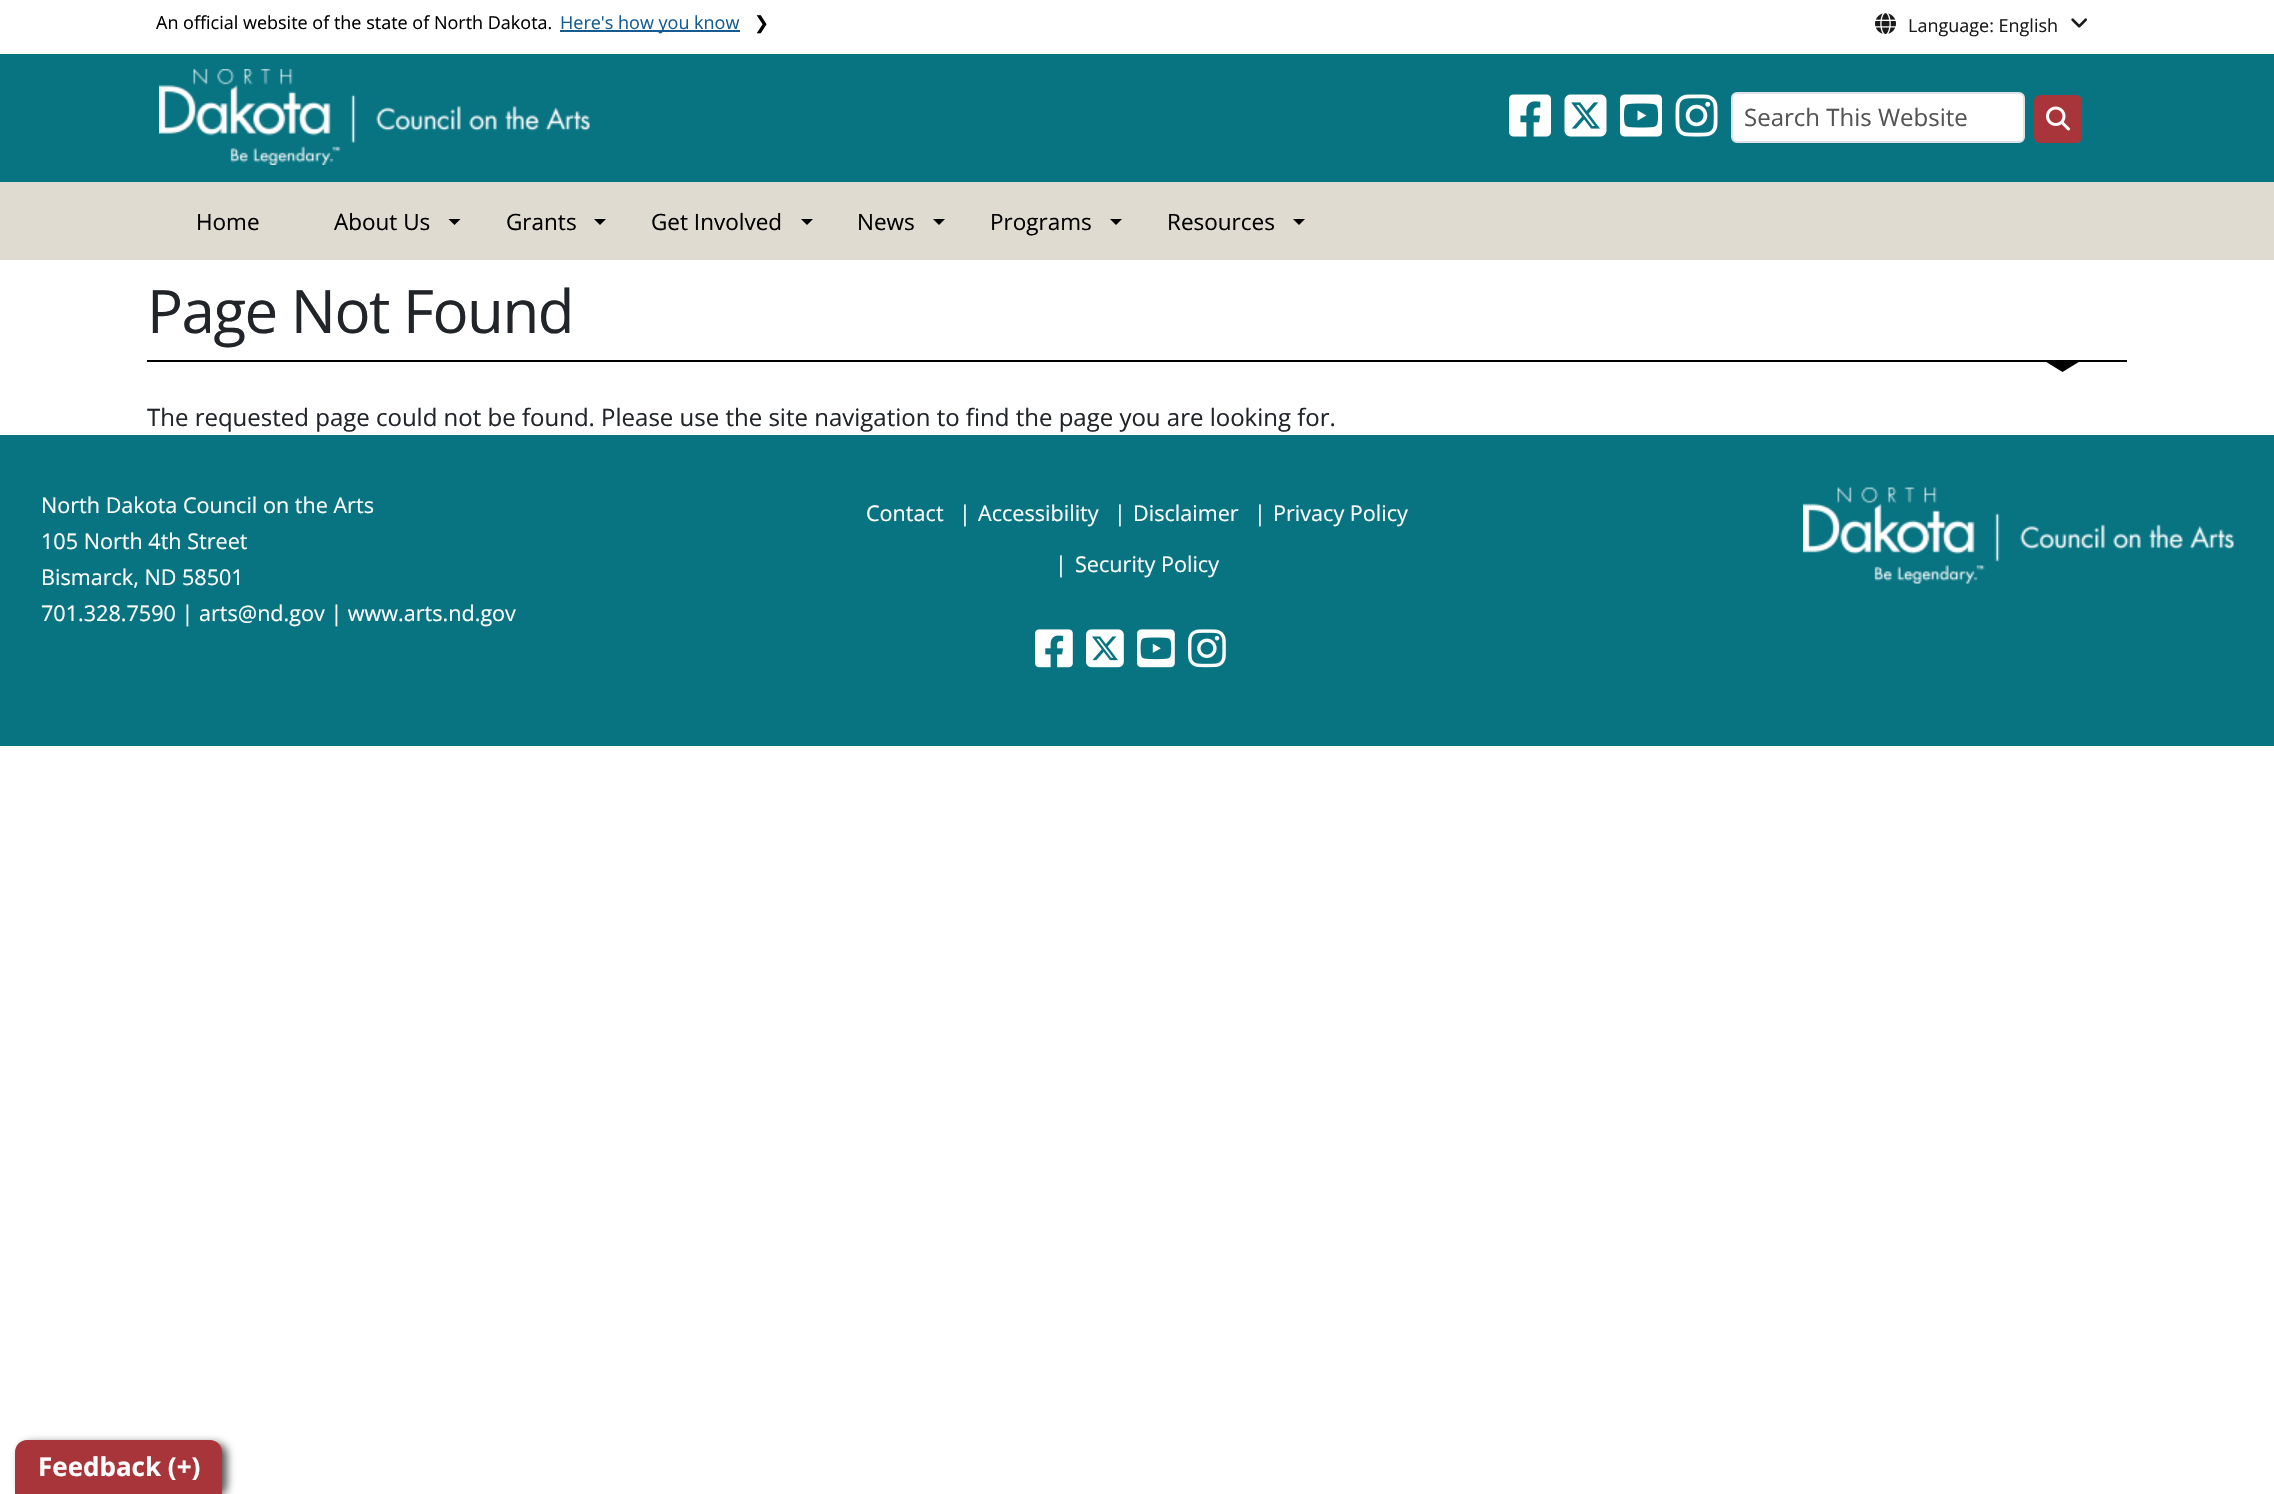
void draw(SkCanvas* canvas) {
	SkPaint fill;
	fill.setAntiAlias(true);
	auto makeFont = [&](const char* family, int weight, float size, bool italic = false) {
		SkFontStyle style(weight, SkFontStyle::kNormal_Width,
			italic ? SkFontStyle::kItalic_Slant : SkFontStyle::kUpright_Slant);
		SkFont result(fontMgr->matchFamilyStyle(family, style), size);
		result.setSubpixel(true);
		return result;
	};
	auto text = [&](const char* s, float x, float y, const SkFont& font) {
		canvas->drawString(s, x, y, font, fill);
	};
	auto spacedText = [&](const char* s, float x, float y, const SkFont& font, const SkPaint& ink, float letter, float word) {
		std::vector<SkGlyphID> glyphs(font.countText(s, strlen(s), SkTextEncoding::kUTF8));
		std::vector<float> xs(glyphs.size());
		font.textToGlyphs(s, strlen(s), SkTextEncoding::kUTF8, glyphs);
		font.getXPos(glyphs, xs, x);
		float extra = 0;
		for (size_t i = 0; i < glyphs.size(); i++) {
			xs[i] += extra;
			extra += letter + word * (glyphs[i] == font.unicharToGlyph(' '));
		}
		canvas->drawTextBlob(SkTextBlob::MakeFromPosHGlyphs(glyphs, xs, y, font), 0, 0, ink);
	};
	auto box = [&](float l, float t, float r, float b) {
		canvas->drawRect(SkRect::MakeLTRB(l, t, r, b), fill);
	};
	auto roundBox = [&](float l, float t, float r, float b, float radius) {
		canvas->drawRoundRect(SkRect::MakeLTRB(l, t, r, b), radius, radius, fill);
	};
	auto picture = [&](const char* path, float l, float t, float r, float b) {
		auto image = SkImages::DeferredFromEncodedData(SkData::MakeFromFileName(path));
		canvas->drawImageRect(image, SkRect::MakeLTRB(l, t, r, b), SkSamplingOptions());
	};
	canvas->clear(0xFFFFFFFF);
	fill.setColor(0xFF165C92);
	box(560, 30, 740, 32);
	picture("image0.png", 1875, 13, 1896, 35);
	picture("image1.png", 2071, 18, 2087, 28);
	fill.setColor(0xFF087482);
	box(0, 54, 2274, 182);
	picture("image2.png", 159, 69, 590, 165);
	picture("image3.png", 1509, 94, 1551, 137);
	picture("image4.png", 1564, 94, 1607, 137);
	picture("image5.png", 1620, 94, 1662, 137);
	picture("image6.png", 1675, 94, 1718, 137);
	fill.setColor(0xFFFFFFFF);
	canvas->drawRoundRect(SkRect::MakeLTRB(1732, 93, 2024, 142), 5, 5, fill);
	fill.setStyle(SkPaint::kStroke_Style);
	fill.setStrokeWidth(2);
	fill.setColor(0xFFDEE2E6);
	canvas->drawRoundRect(SkRect::MakeLTRB(1732, 93, 2024, 142), 5, 5, fill);
	fill.setStyle(SkPaint::kFill_Style);
	fill.setColor(0xFFA8353A);
	roundBox(2034, 95, 2082, 143, 6);
	picture("image7.png", 2046, 106, 2070, 131);
	fill.setColor(0xFFDFDBD1);
	box(0, 182, 2274, 260);
	fill.setColor(0xFF000000);
	canvas->drawPath(SkPathBuilder().moveTo(448.5f, 219).lineTo(460.5f, 219).lineTo(454.5f, 225).close().detach(), fill);
	canvas->drawPath(SkPathBuilder().moveTo(594, 219).lineTo(606, 219).lineTo(600, 225).close().detach(), fill);
	canvas->drawPath(SkPathBuilder().moveTo(801, 219).lineTo(813, 219).lineTo(807, 225).close().detach(), fill);
	canvas->drawPath(SkPathBuilder().moveTo(933, 219).lineTo(945, 219).lineTo(939, 225).close().detach(), fill);
	canvas->drawPath(SkPathBuilder().moveTo(1110, 219).lineTo(1122, 219).lineTo(1116, 225).close().detach(), fill);
	canvas->drawPath(SkPathBuilder().moveTo(1293, 219).lineTo(1305, 219).lineTo(1299, 225).close().detach(), fill);
	box(147, 360, 2127, 362);
	canvas->drawPath(SkPathBuilder().moveTo(2043, 360).lineTo(2082, 360).lineTo(2062.5f, 372).close().detach(), fill);
	fill.setColor(0xFF087482);
	box(0, 435, 2274, 746);
	picture("image8.png", 1035, 629, 1073, 668);
	picture("image9.png", 1086, 629, 1124, 668);
	picture("image10.png", 1137, 629, 1175, 668);
	picture("image11.png", 1188, 629, 1226, 668);
	picture("image12.png", 1803, 487, 2234, 584);
	fill.setColor(0xFF555555);
	fill.setMaskFilter(SkMaskFilter::MakeBlur(kNormal_SkBlurStyle, 4));
	canvas->drawRoundRect(SkRect::MakeLTRB(20, 1443, 227, 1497), 12, 12, fill);
	fill.setMaskFilter(nullptr);
	fill.setColor(0xFFA8353A);
	canvas->drawPath(SkPathBuilder().moveTo(27, 1440).lineTo(210, 1440).cubicTo(216.5f, 1440, 222, 1445.5f, 222, 1452).lineTo(222, 1494).lineTo(15, 1494).lineTo(15, 1452).cubicTo(15, 1445.5f, 20.5f, 1440, 27, 1440).close().detach(), fill);
	auto font1 = makeFont("Open Sans", 400, 18);
	fill.setColor(0xFF000000);
	text("An official website of the state of North Dakota.", 156, 29, font1);
	fill.setColor(0xFF165C92);
	text("Here's how you know", 560, 29, font1);
	auto font2 = makeFont("DejaVu Sans", 400, 18);
	fill.setColor(0xFF000000);
	text("❯", 754, 29, font2);
	fill.setColor(0xFF1A1A1A);
	text("Language: English", 1908, 32, font1);
	auto font3 = makeFont("Open Sans", 400, 24);
	fill.setColor(0xFF545454);
	text("Search This Website", 1744, 126, font3);
	auto font4 = makeFont("Open Sans", 400, 22.5f);
	fill.setColor(0xFF000000);
	text("Home", 196, 230, font4);
	text("About Us", 334, 230, font4);
	text("Grants", 506, 230, font4);
	text("Get Involved", 651, 230, font4);
	text("News", 857, 230, font4);
	text("Programs", 990, 230, font4);
	text("Resources", 1167, 230, font4);
	auto font5 = makeFont("Open Sans", 400, 60);
	fill.setColor(0xFF212529);
	spacedText("Page Not Found", 147, 333, font5, fill, -1.5f, 0);
	text("The requested page could not be found. Please use the site navigation to find the page you are looking for.", 147, 426, font3);
	auto font6 = makeFont("Open Sans", 400, 21.6f);
	fill.setColor(0xFFFFFFFF);
	text("North Dakota Council on the Arts", 41, 513, font6);
	text("105 North 4th Street", 41, 549, font6);
	text("Bismarck, ND 58501", 41, 585, font6);
	text("701.328.7590 | arts@nd.gov | www.arts.nd.gov", 41, 621, font6);
	text("Contact", 866, 521, font6);
	text("|", 959, 521, font6);
	text("Accessibility", 978, 521, font6);
	text("|", 1114, 521, font6);
	text("Disclaimer", 1133, 521, font6);
	text("|", 1254, 521, font6);
	text("Privacy Policy", 1273, 521, font6);
	text("|", 1055, 572, font6);
	text("Security Policy", 1075, 572, font6);
	auto font7 = makeFont("Open Sans", 700, 26);
	text("Feedback (+)", 38, 1476, font7);
}
